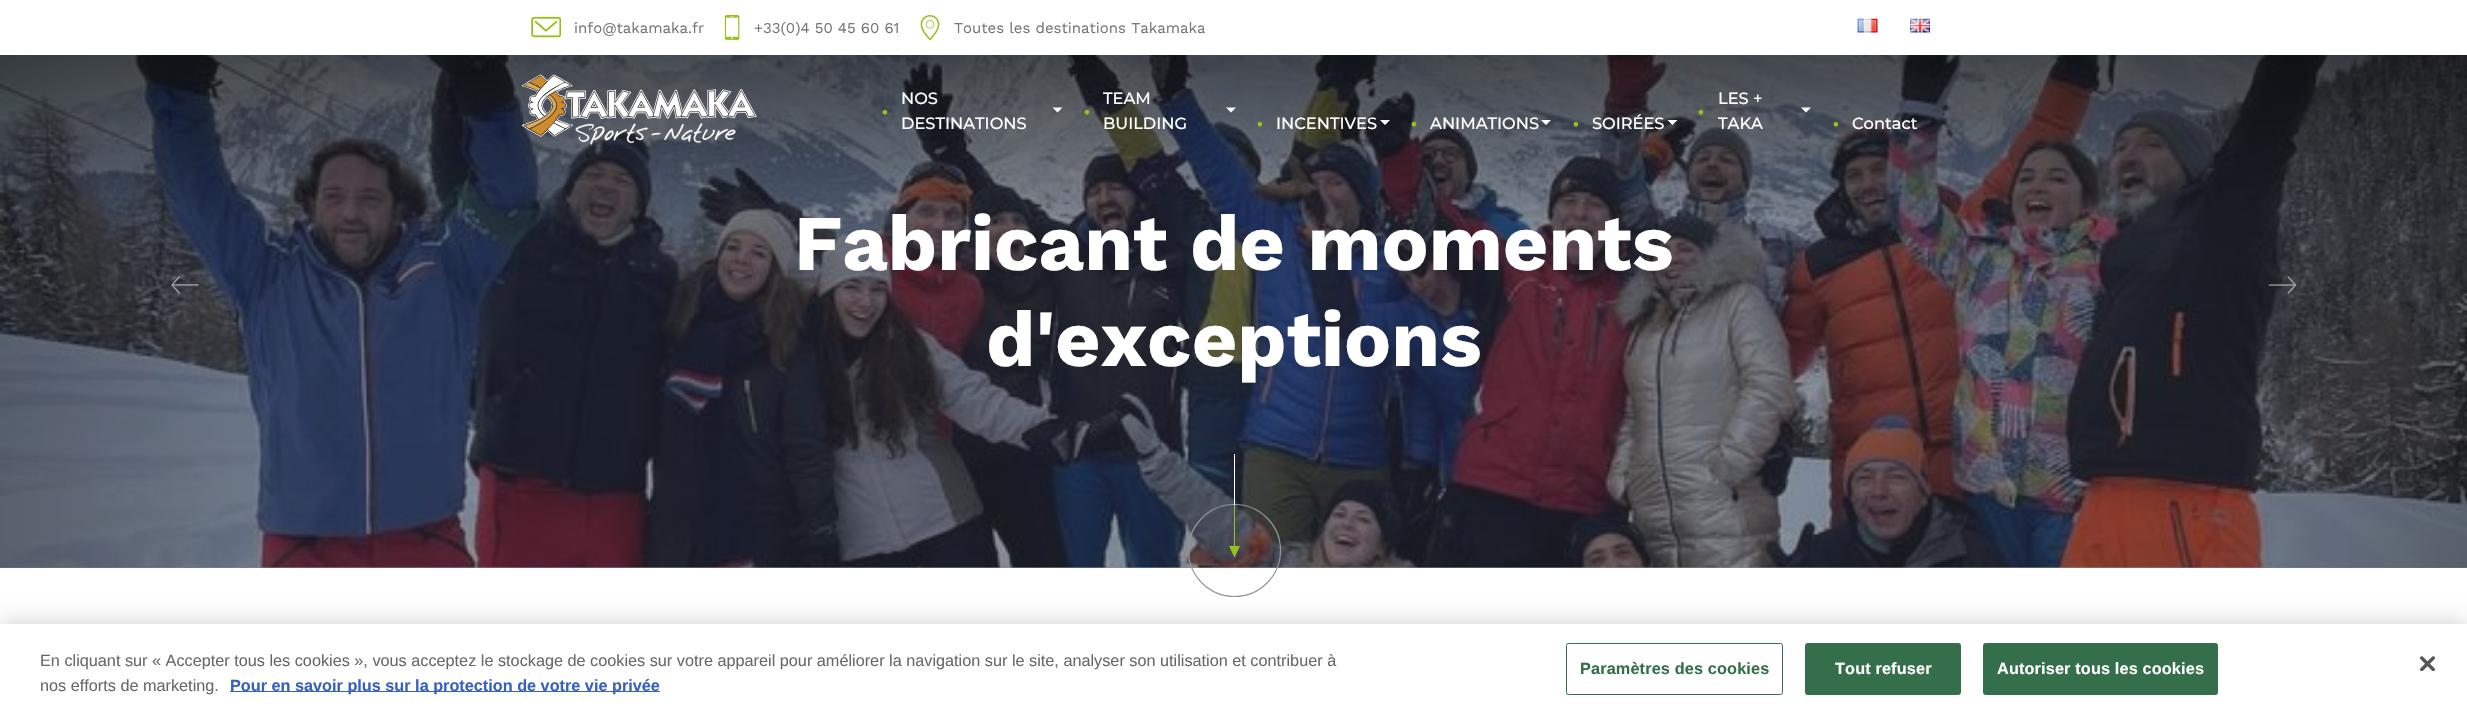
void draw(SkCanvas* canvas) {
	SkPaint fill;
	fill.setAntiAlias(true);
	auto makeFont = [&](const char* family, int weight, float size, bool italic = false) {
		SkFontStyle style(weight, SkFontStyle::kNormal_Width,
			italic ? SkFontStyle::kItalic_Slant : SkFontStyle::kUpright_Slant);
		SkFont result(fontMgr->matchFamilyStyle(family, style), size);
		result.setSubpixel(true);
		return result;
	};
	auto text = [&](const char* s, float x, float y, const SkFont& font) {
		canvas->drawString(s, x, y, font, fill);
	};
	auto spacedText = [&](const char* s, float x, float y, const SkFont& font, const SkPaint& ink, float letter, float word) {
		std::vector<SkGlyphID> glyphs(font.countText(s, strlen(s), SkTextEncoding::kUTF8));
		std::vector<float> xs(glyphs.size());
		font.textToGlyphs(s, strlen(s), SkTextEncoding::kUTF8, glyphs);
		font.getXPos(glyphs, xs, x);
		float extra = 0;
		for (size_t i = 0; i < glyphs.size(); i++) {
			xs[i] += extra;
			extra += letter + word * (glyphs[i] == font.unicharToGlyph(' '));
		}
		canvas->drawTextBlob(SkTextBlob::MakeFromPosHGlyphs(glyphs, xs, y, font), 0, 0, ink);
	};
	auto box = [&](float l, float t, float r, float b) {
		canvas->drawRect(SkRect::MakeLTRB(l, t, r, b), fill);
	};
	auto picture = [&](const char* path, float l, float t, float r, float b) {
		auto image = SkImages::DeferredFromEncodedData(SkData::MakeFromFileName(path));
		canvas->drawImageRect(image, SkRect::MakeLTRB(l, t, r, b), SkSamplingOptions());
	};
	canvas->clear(0xFFFFFFFF);
	picture("image0.png", 531, 16, 561, 38);
	picture("image1.png", 724, 15, 740, 40);
	picture("image2.png", 920, 15, 940, 40);
	picture("image3.png", 1857, 18, 1878, 33);
	picture("image4.png", 1910, 18, 1930, 33);
	fill.setColor(0xFF929292);
	box(0, 567, 2467, 568);
	picture("image6.png", 0, 55, 2467, 568);
	{
		const SkColor colors[] = {0x00000000, 0xB3000000};
		const float stops[] = {0.57f, 1};
		const SkPoint ends[] = {{1234, 568}, {1234, -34}};
		fill.setShader(SkGradientShader::MakeLinear(ends, colors, stops, 2, SkTileMode::kClamp));
		fill.setAlpha(255);
	}
	box(0, 55, 2467, 217);
	picture("image5.png", 521, 74, 757, 145);
	fill.setShader(nullptr);
	fill.setColor(0xFFFFFFFF);
	canvas->drawPath(SkPathBuilder().moveTo(1052.5f, 107.5f).lineTo(1062.5f, 107.5f).lineTo(1057.5f, 112.5f).close().detach(), fill);
	canvas->drawPath(SkPathBuilder().moveTo(1226, 107.5f).lineTo(1236, 107.5f).lineTo(1231, 112.5f).close().detach(), fill);
	canvas->drawPath(SkPathBuilder().moveTo(1380, 120).lineTo(1390, 120).lineTo(1385, 125).close().detach(), fill);
	canvas->drawPath(SkPathBuilder().moveTo(1541, 120).lineTo(1551, 120).lineTo(1546, 125).close().detach(), fill);
	canvas->drawPath(SkPathBuilder().moveTo(1667.5f, 120).lineTo(1677.5f, 120).lineTo(1672.5f, 125).close().detach(), fill);
	canvas->drawPath(SkPathBuilder().moveTo(1801, 107.5f).lineTo(1811, 107.5f).lineTo(1806, 112.5f).close().detach(), fill);
	{
		const SkColor colors[] = {0x40000000, 0x00000000};
		const float stops[] = {0, 1};
		const SkPoint ends[] = {{0, 284}, {370, 284}};
		fill.setShader(SkGradientShader::MakeLinear(ends, colors, stops, 2, SkTileMode::kClamp));
		fill.setAlpha(255);
	}
	box(0, 55, 338, 568);
	picture("image7.png", 171, 276, 199, 294);
	{
		const SkColor colors[] = {0x00000000, 0x40000000};
		const float stops[] = {0, 1};
		const SkPoint ends[] = {{2098, 284}, {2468, 284}};
		fill.setShader(SkGradientShader::MakeLinear(ends, colors, stops, 2, SkTileMode::kClamp));
		fill.setAlpha(255);
	}
	box(2130, 55, 2467, 568);
	picture("image8.png", 2268, 276, 2297, 294);
	fill.setStyle(SkPaint::kStroke_Style);
	fill.setStrokeWidth(1.2f);
	fill.setShader(nullptr);
	fill.setColor(0xFF979797);
	canvas->drawCircle(1234.5f, 550.5f, 46, fill);
	fill.setStyle(SkPaint::kFill_Style);
	fill.setColor(0xFFFFFFFF);
	box(1234, 454, 1235, 505);
	fill.setColor(0xFF96C11F);
	box(1234, 505, 1235, 549);
	canvas->drawPath(SkPathBuilder().moveTo(1240, 546).lineTo(1234.5f, 557.5f).lineTo(1229, 546).close().detach(), fill);
	fill.setColor(0x33000000);
	fill.setMaskFilter(SkMaskFilter::MakeBlur(kNormal_SkBlurStyle, 11));
	canvas->drawRect(SkRect::MakeLTRB(0, 624, 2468, 710), fill);
	fill.setMaskFilter(nullptr);
	fill.setColor(0xFFFFFFFF);
	box(0, 624, 2467, 710);
	fill.setColor(0xFF3860BE);
	box(230, 691, 660, 692);
	fill.setStyle(SkPaint::kStroke_Style);
	fill.setStrokeWidth(1);
	fill.setColor(0xFF346E4A);
	canvas->drawRoundRect(SkRect::MakeLTRB(1566.5f, 643.5f, 1782.5f, 694.5f), 2, 2, fill);
	fill.setStyle(SkPaint::kFill_Style);
	canvas->drawRoundRect(SkRect::MakeLTRB(1805.5f, 643.5f, 1960.5f, 694.5f), 2, 2, fill);
	fill.setStyle(SkPaint::kStroke_Style);
	canvas->drawRoundRect(SkRect::MakeLTRB(1805.5f, 643.5f, 1960.5f, 694.5f), 2, 2, fill);
	fill.setStyle(SkPaint::kFill_Style);
	canvas->drawRoundRect(SkRect::MakeLTRB(1983.5f, 643.5f, 2217.5f, 694.5f), 2, 2, fill);
	fill.setStyle(SkPaint::kStroke_Style);
	canvas->drawRoundRect(SkRect::MakeLTRB(1983.5f, 643.5f, 2217.5f, 694.5f), 2, 2, fill);
	picture("image9.png", 2420, 656, 2435, 671);
	auto font1 = makeFont("Work Sans", 400, 15);
	fill.setStyle(SkPaint::kFill_Style);
	fill.setColor(0xFF777777);
	text("info@takamaka.fr", 574, 33, font1);
	text("+33(0)4 50 45 60 61", 754, 33, font1);
	text("Toutes les destinations Takamaka", 954, 33, font1);
	auto font2 = makeFont("Montserrat", 100, 16.25f);
	fill.setColor(0xFFFFFFFF);
	text("NOS", 901, 104, font2);
	auto font3 = makeFont("Montserrat", 100, 25);
	fill.setColor(0xFF96C11F);
	text("•", 881, 119, font3);
	fill.setColor(0xFFFFFFFF);
	text("DESTINATIONS", 901, 129, font2);
	text("TEAM", 1103, 104, font2);
	fill.setColor(0xFF96C11F);
	text("•", 1083, 119, font3);
	fill.setColor(0xFFFFFFFF);
	text("BUILDING", 1103, 129, font2);
	fill.setColor(0xFF96C11F);
	text("•", 1256, 131, font3);
	fill.setColor(0xFFFFFFFF);
	text("INCENTIVES", 1276, 129, font2);
	fill.setColor(0xFF96C11F);
	text("•", 1410, 131, font3);
	fill.setColor(0xFFFFFFFF);
	text("ANIMATIONS", 1430, 129, font2);
	fill.setColor(0xFF96C11F);
	text("•", 1572, 131, font3);
	fill.setColor(0xFFFFFFFF);
	text("SOIRÉES", 1592, 129, font2);
	text("LES +", 1718, 104, font2);
	fill.setColor(0xFF96C11F);
	text("•", 1697, 119, font3);
	fill.setColor(0xFFFFFFFF);
	text("TAKA", 1718, 129, font2);
	fill.setColor(0xFF96C11F);
	text("•", 1832, 131, font3);
	fill.setColor(0xFFFFFFFF);
	text("Contact", 1852, 129, font2);
	auto font4 = makeFont("Work Sans", 700, 78.75f);
	text("Fabricant de moments", 794, 270, font4);
	text("d'exceptions", 986, 366, font4);
	auto font5 = makeFont("Liberation Sans", 400, 16.25f);
	fill.setColor(0xFF696969);
	text("En cliquant sur « Accepter tous les cookies », vous acceptez le stockage de cookies sur votre appareil pour améliorer la navigation sur le site, analyser son utilisation et contribuer à", 40, 666, font5);
	text("nos efforts de marketing.", 40, 691, font5);
	auto font6 = makeFont("Liberation Sans", 700, 16.25f);
	fill.setColor(0xFF3860BE);
	text("Pour en savoir plus sur la protection de votre vie privée", 230, 691, font6);
	fill.setColor(0xFF346E4A);
	spacedText("Paramètres des cookies", 1580, 674, font6, fill, 0.15f, 0);
	fill.setColor(0xFFFFFFFF);
	spacedText("Tout refuser", 1835, 674, font6, fill, 0.15f, 0);
	spacedText("Autoriser tous les cookies", 1997, 674, font6, fill, 0.15f, 0);
}
